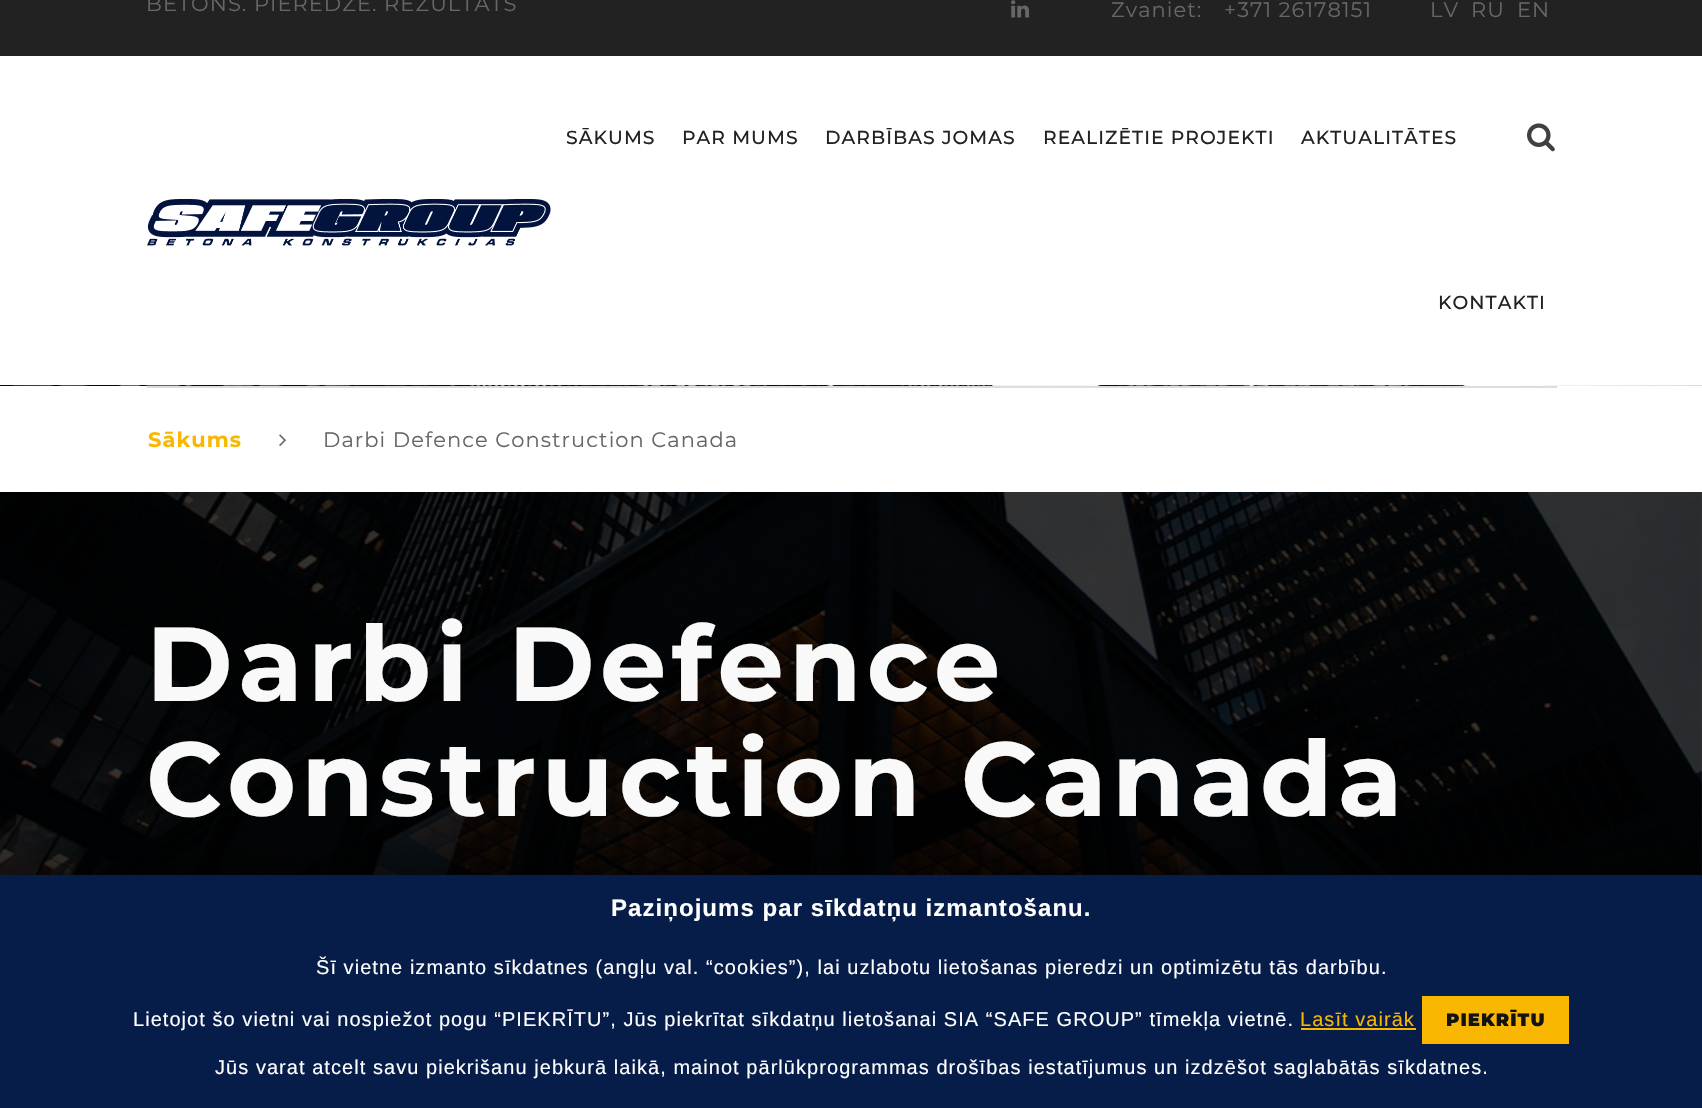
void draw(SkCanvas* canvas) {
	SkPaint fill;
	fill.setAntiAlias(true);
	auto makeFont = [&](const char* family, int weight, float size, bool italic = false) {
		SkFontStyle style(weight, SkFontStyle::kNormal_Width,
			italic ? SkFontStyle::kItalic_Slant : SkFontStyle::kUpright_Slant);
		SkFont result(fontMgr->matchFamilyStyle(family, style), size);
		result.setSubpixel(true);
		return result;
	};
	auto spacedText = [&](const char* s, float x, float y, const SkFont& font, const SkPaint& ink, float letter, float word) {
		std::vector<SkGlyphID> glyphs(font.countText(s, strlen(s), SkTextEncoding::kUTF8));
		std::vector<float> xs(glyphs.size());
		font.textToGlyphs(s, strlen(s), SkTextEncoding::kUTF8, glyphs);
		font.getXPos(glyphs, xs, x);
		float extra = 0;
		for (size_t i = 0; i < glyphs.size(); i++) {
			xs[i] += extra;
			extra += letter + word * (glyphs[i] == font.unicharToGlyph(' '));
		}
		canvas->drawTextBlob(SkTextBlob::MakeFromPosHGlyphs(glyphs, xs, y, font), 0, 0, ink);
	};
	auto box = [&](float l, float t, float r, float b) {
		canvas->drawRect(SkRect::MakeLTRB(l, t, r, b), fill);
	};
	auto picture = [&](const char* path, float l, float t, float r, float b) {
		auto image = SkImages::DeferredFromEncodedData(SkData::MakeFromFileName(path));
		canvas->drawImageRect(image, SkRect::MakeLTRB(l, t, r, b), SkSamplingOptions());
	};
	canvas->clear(0xFFFFFFFF);
	fill.setColor(0xFF222222);
	box(0, 0, 1702, 56);
	picture("image0.png", 1011, 0, 1029, 18);
	picture("image1.png", 147, 199, 551, 246);
	picture("image2.png", 1527, 123, 1555, 152);
	picture("image3.png", 0, 385, 1702, 875);
	fill.setColor(0xFFFFFFFF);
	box(0, 386, 1702, 492);
	fill.setColor(0xFFDDDDDD);
	box(147, 386, 1557, 388);
	picture("image4.png", 279, 434, 286, 446);
	fill.setColor(0x8C000000);
	box(0, 492, 1702, 875);
	fill.setColor(0x80000000);
	fill.setMaskFilter(SkMaskFilter::MakeBlur(kNormal_SkBlurStyle, 37.5f));
	canvas->drawRect(SkRect::MakeLTRB(0, 882, 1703, 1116), fill);
	fill.setMaskFilter(nullptr);
	fill.setColor(0xFF071D49);
	box(0, 875, 1702, 1108);
	fill.setColor(0xFFFAB702);
	box(1301, 1028, 1416, 1030);
	box(1422, 996, 1569, 1044);
	auto font1 = makeFont("Montserrat", 400, 21);
	fill.setColor(0xFF666666);
	spacedText("BETONS. PIEREDZE. REZULTĀTS", 146, 11, font1, fill, 1.05f, 0);
	spacedText("Zvaniet:", 1111, 17, font1, fill, 1.05f, 0);
	spacedText("+371 26178151", 1224, 17, font1, fill, 1.05f, 0);
	spacedText("LV", 1430, 17, font1, fill, 1.05f, 0);
	spacedText("RU", 1471, 17, font1, fill, 1.05f, 0);
	spacedText("EN", 1517, 17, font1, fill, 1.05f, 0);
	auto font2 = makeFont("Montserrat", 500, 18.75f);
	fill.setColor(0xFF222222);
	spacedText("SĀKUMS", 566, 144, font2, fill, 1.05f, 0);
	spacedText("PAR MUMS", 682, 144, font2, fill, 1.05f, 0);
	spacedText("DARBĪBAS JOMAS", 825, 144, font2, fill, 1.05f, 0);
	spacedText("REALIZĒTIE PROJEKTI", 1043, 144, font2, fill, 1.05f, 0);
	spacedText("AKTUALITĀTES", 1301, 144, font2, fill, 1.05f, 0);
	spacedText("KONTAKTI", 1438, 309, font2, fill, 1.05f, 0);
	auto font3 = makeFont("Montserrat", 700, 21);
	fill.setColor(0xFFFAB702);
	spacedText("Sākums", 148, 447, font3, fill, 1.05f, 0);
	fill.setColor(0xFF666666);
	spacedText("Darbi Defence Construction Canada", 323, 447, font1, fill, 1.05f, 0);
	auto font4 = makeFont("Montserrat", 700, 105);
	fill.setColor(0xFFF9F9F9);
	spacedText("Darbi Defence", 146, 701, font4, fill, 5.25f, 0);
	spacedText("Construction Canada", 146, 816, font4, fill, 5.25f, 0);
	auto font5 = makeFont("Liberation Sans", 700, 24);
	fill.setColor(0xFFFFFFFF);
	spacedText("Paziņojums par sīkdatņu izmantošanu.", 611, 916, font5, fill, 1.05f, 0);
	auto font6 = makeFont("Liberation Sans", 400, 20);
	spacedText("Šī vietne izmanto sīkdatnes (angļu val. “cookies”), lai uzlabotu lietošanas pieredzi un optimizētu tās darbību.", 316, 974, font6, fill, 1.05f, 0);
	spacedText("Lietojot šo vietni vai nospiežot pogu “PIEKRĪTU”, Jūs piekrītat sīkdatņu lietošanai SIA “SAFE GROUP” tīmekļa vietnē.", 133, 1026, font6, fill, 1.05f, 0);
	fill.setColor(0xFFFAB702);
	spacedText("Lasīt vairāk", 1300, 1026, font6, fill, 1.05f, 0);
	auto font7 = makeFont("Montserrat", 900, 18);
	fill.setColor(0xFF131313);
	spacedText("PIEKRĪTU", 1446, 1026, font7, fill, 1.05f, 0);
	fill.setColor(0xFFFFFFFF);
	spacedText("Jūs varat atcelt savu piekrišanu jebkurā laikā, mainot pārlūkprogrammas drošības iestatījumus un izdzēšot saglabātās sīkdatnes.", 215, 1074, font6, fill, 1.05f, 0);
}
